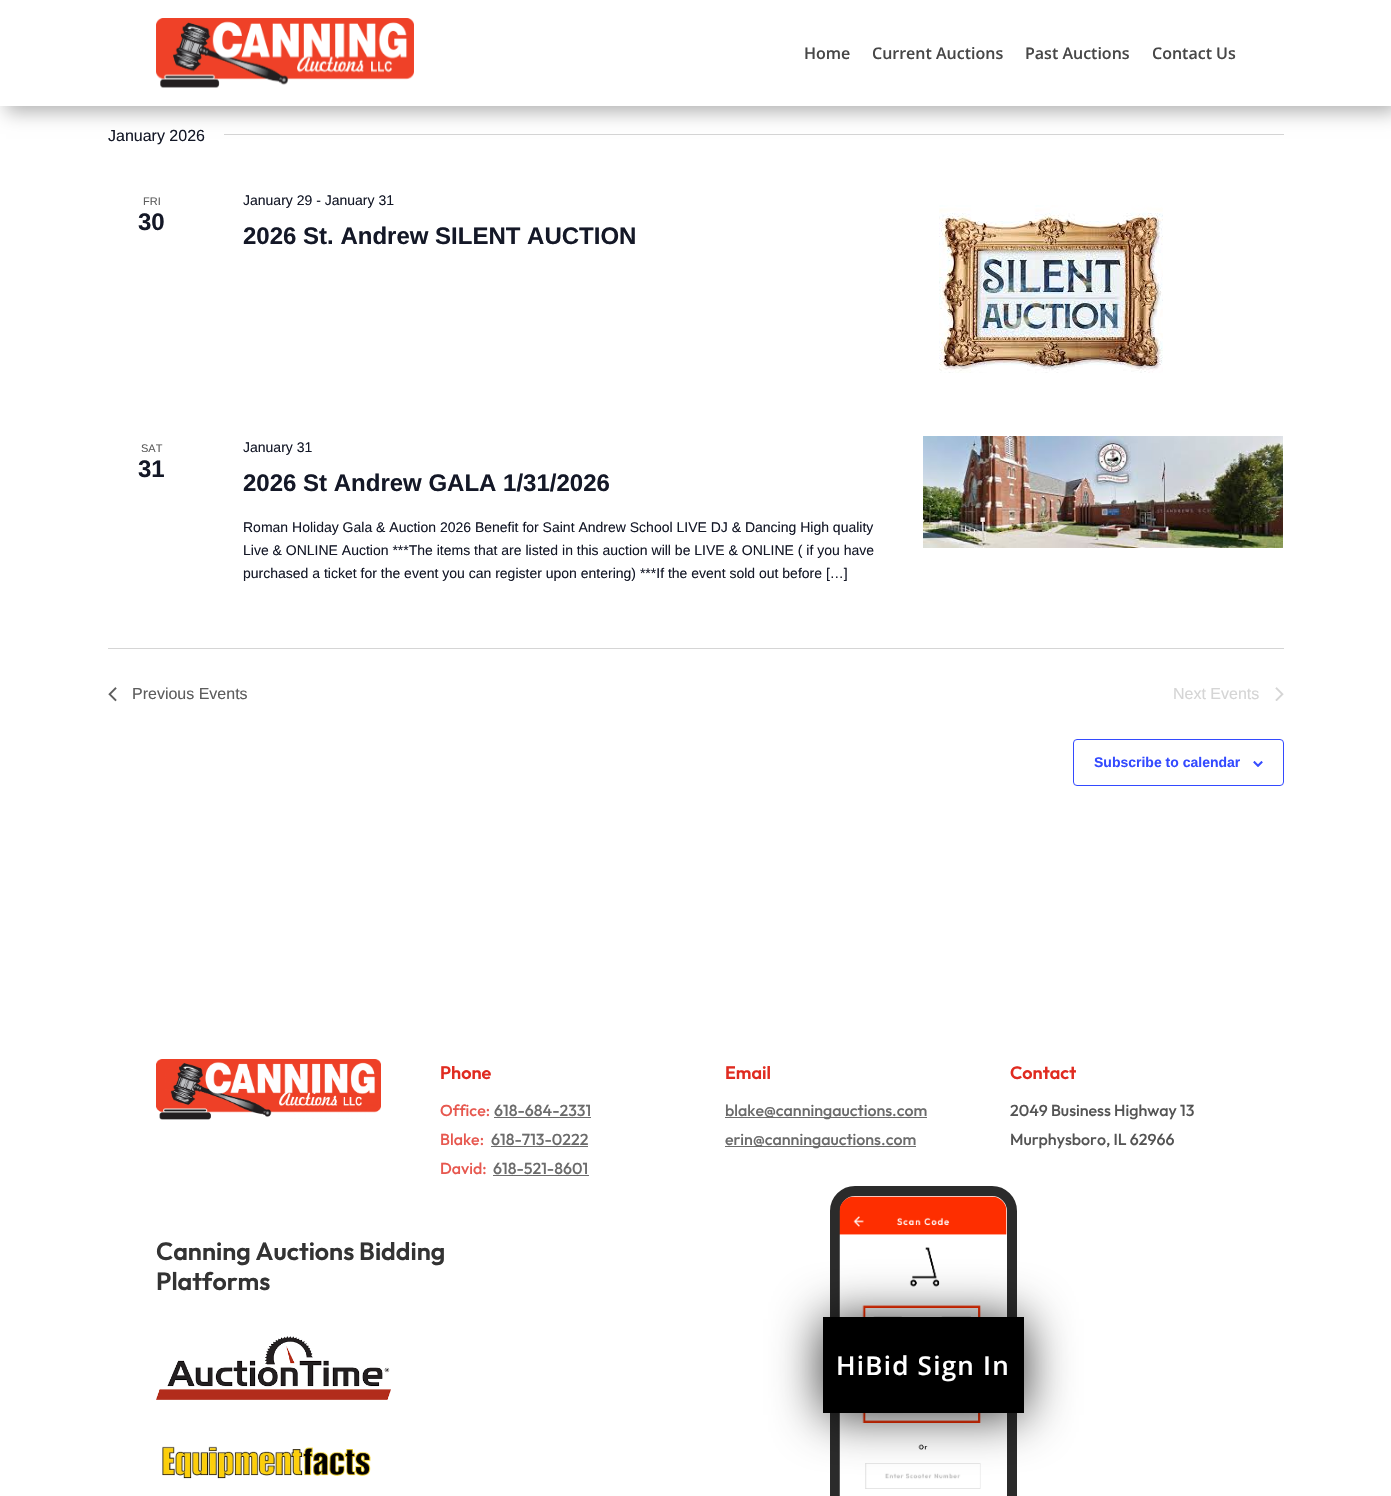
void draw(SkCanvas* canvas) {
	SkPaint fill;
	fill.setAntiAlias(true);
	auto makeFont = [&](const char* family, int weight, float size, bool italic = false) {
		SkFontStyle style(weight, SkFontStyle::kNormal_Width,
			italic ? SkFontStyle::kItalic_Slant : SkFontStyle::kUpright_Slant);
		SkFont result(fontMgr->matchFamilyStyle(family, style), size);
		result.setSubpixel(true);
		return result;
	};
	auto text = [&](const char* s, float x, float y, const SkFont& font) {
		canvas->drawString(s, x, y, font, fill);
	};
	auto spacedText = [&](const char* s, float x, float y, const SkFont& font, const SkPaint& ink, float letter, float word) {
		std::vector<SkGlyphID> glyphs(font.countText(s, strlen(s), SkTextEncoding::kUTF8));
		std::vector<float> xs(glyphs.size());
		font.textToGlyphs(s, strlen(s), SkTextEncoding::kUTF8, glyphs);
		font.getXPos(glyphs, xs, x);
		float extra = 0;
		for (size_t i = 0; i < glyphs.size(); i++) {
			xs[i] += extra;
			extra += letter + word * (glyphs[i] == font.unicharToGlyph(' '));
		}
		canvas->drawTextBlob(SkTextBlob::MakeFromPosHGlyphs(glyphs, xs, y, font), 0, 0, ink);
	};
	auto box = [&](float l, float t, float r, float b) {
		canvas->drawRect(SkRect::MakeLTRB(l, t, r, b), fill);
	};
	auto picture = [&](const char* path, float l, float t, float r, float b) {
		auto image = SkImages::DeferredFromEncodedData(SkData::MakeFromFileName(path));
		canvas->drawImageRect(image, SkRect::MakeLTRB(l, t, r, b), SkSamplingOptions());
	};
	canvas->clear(0xFFFFFFFF);
	fill.setColor(0xFFD5D5D5);
	box(224, 134, 1284, 135);
	fill.setColor(0x4D000000);
	fill.setMaskFilter(SkMaskFilter::MakeBlur(kNormal_SkBlurStyle, 9));
	canvas->drawRect(SkRect::MakeLTRB(6, 6, 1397, 112), fill);
	fill.setMaskFilter(nullptr);
	fill.setColor(0xFFFFFFFF);
	box(0, 0, 1391, 106);
	picture("image0.png", 156, 18, 414, 88);
	picture("image1.png", 939, 205, 1163, 373);
	picture("image2.png", 923, 436, 1283, 548);
	fill.setColor(0xFFD5D5D5);
	box(108, 648, 1284, 649);
	picture("image3.png", 108, 687, 117, 702);
	picture("image4.png", 1275, 687, 1284, 701);
	fill.setStyle(SkPaint::kStroke_Style);
	fill.setStrokeWidth(1);
	fill.setColor(0xFF334AFF);
	canvas->drawRoundRect(SkRect::MakeLTRB(1073.5f, 739.5f, 1283.5f, 785.5f), 3.5f, 3.5f, fill);
	picture("image5.png", 1253, 761, 1263, 767);
	picture("image6.png", 156, 1059, 381, 1120);
	fill.setStyle(SkPaint::kFill_Style);
	fill.setColor(0xFF6B6B6B);
	box(494, 1117, 591, 1118);
	box(491, 1146, 588, 1147);
	box(493, 1175, 589, 1176);
	box(725, 1117, 927, 1118);
	box(725, 1146, 916, 1147);
	picture("image7.png", 156, 1336, 391, 1400);
	picture("image8.png", 162, 1446, 371, 1479);
	fill.setStyle(SkPaint::kStroke_Style);
	fill.setStrokeWidth(10);
	fill.setColor(0xFF2B2B2B);
	canvas->drawRoundRect(SkRect::MakeLTRB(835, 1191, 1012, 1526), 20, 20, fill);
	picture("image9.png", 839, 1196, 1007, 1496);
	fill.setStyle(SkPaint::kFill_Style);
	fill.setColor(0xCC000000);
	fill.setMaskFilter(SkMaskFilter::MakeBlur(kNormal_SkBlurStyle, 25));
	canvas->drawRect(SkRect::MakeLTRB(823, 1319, 1024, 1415), fill);
	fill.setMaskFilter(nullptr);
	fill.setColor(0xFF000000);
	box(823, 1317, 1024, 1413);
	auto font1 = makeFont("Open Sans", 600, 16);
	fill.setColor(0xFF474747);
	text("Home", 804, 59, font1);
	text("Current Auctions", 872, 59, font1);
	text("Past Auctions", 1025, 59, font1);
	text("Contact Us", 1152, 59, font1);
	auto font2 = makeFont("Liberation Sans", 400, 16);
	fill.setColor(0xFF141827);
	text("January 2026", 108, 141, font2);
	auto font3 = makeFont("Liberation Sans", 400, 11);
	fill.setColor(0xFF5D5D5D);
	text("FRI", 143, 205, font3);
	auto font4 = makeFont("Liberation Sans", 700, 24);
	fill.setColor(0xFF141827);
	text("30", 138, 230, font4);
	auto font5 = makeFont("Liberation Sans", 400, 14);
	text("January 29 - January 31", 243, 205, font5);
	text("2026 St. Andrew SILENT AUCTION", 243, 244, font4);
	fill.setColor(0xFF5D5D5D);
	text("SAT", 141, 452, font3);
	fill.setColor(0xFF141827);
	text("31", 138, 477, font4);
	text("January 31", 243, 452, font5);
	text("2026 St Andrew GALA 1/31/2026", 243, 491, font4);
	text("Roman Holiday Gala & Auction 2026 Benefit for Saint Andrew School LIVE DJ & Dancing High quality", 243, 532, font5);
	text("Live & ONLINE Auction ***The items that are listed in this auction will be LIVE & ONLINE ( if you have", 243, 555, font5);
	text("purchased a ticket for the event you can register upon entering) ***If the event sold out before […]", 243, 578, font5);
	fill.setColor(0xFF5D5D5D);
	text("Previous Events", 132, 699, font2);
	fill.setColor(0xFFD5D5D5);
	text("Next Events", 1173, 699, font2);
	auto font6 = makeFont("Liberation Sans", 700, 14);
	fill.setColor(0xFF334AFF);
	text("Subscribe to calendar", 1094, 767, font6);
	auto font7 = makeFont("Outfit", 100, 18);
	fill.setColor(0xFFE02B20);
	text("Phone", 440, 1079, font7);
	auto font8 = makeFont("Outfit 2", 100, 16);
	fill.setColor(0xFFE7584F);
	text("Office:", 440, 1116, font8);
	fill.setColor(0xFF6B6B6B);
	text("618-684-2331", 494, 1116, font8);
	fill.setColor(0xFFE7584F);
	text("Blake:", 440, 1145, font8);
	fill.setColor(0xFF6B6B6B);
	text("618-713-0222", 491, 1145, font8);
	fill.setColor(0xFFE7584F);
	text("David:", 440, 1174, font8);
	fill.setColor(0xFF6B6B6B);
	text("618-521-8601", 493, 1174, font8);
	fill.setColor(0xFFE02B20);
	text("Email", 725, 1079, font7);
	fill.setColor(0xFF6B6B6B);
	text("blake@canningauctions.com", 725, 1116, font8);
	text("erin@canningauctions.com", 725, 1145, font8);
	fill.setColor(0xFFE02B20);
	text("Contact", 1010, 1079, font7);
	fill.setColor(0xFF545454);
	text("2049 Business Highway 13", 1010, 1116, font8);
	text("Murphysboro, IL 62966", 1010, 1145, font8);
	auto font9 = makeFont("Outfit", 100, 25);
	fill.setColor(0xFF333333);
	text("Canning Auctions Bidding", 156, 1260, font9);
	text("Platforms", 156, 1290, font9);
	auto font10 = makeFont("Open Sans", 600, 26);
	fill.setColor(0xFFFFFFFF);
	spacedText("HiBid Sign In", 836, 1375, font10, fill, 1.25f, 0);
}
